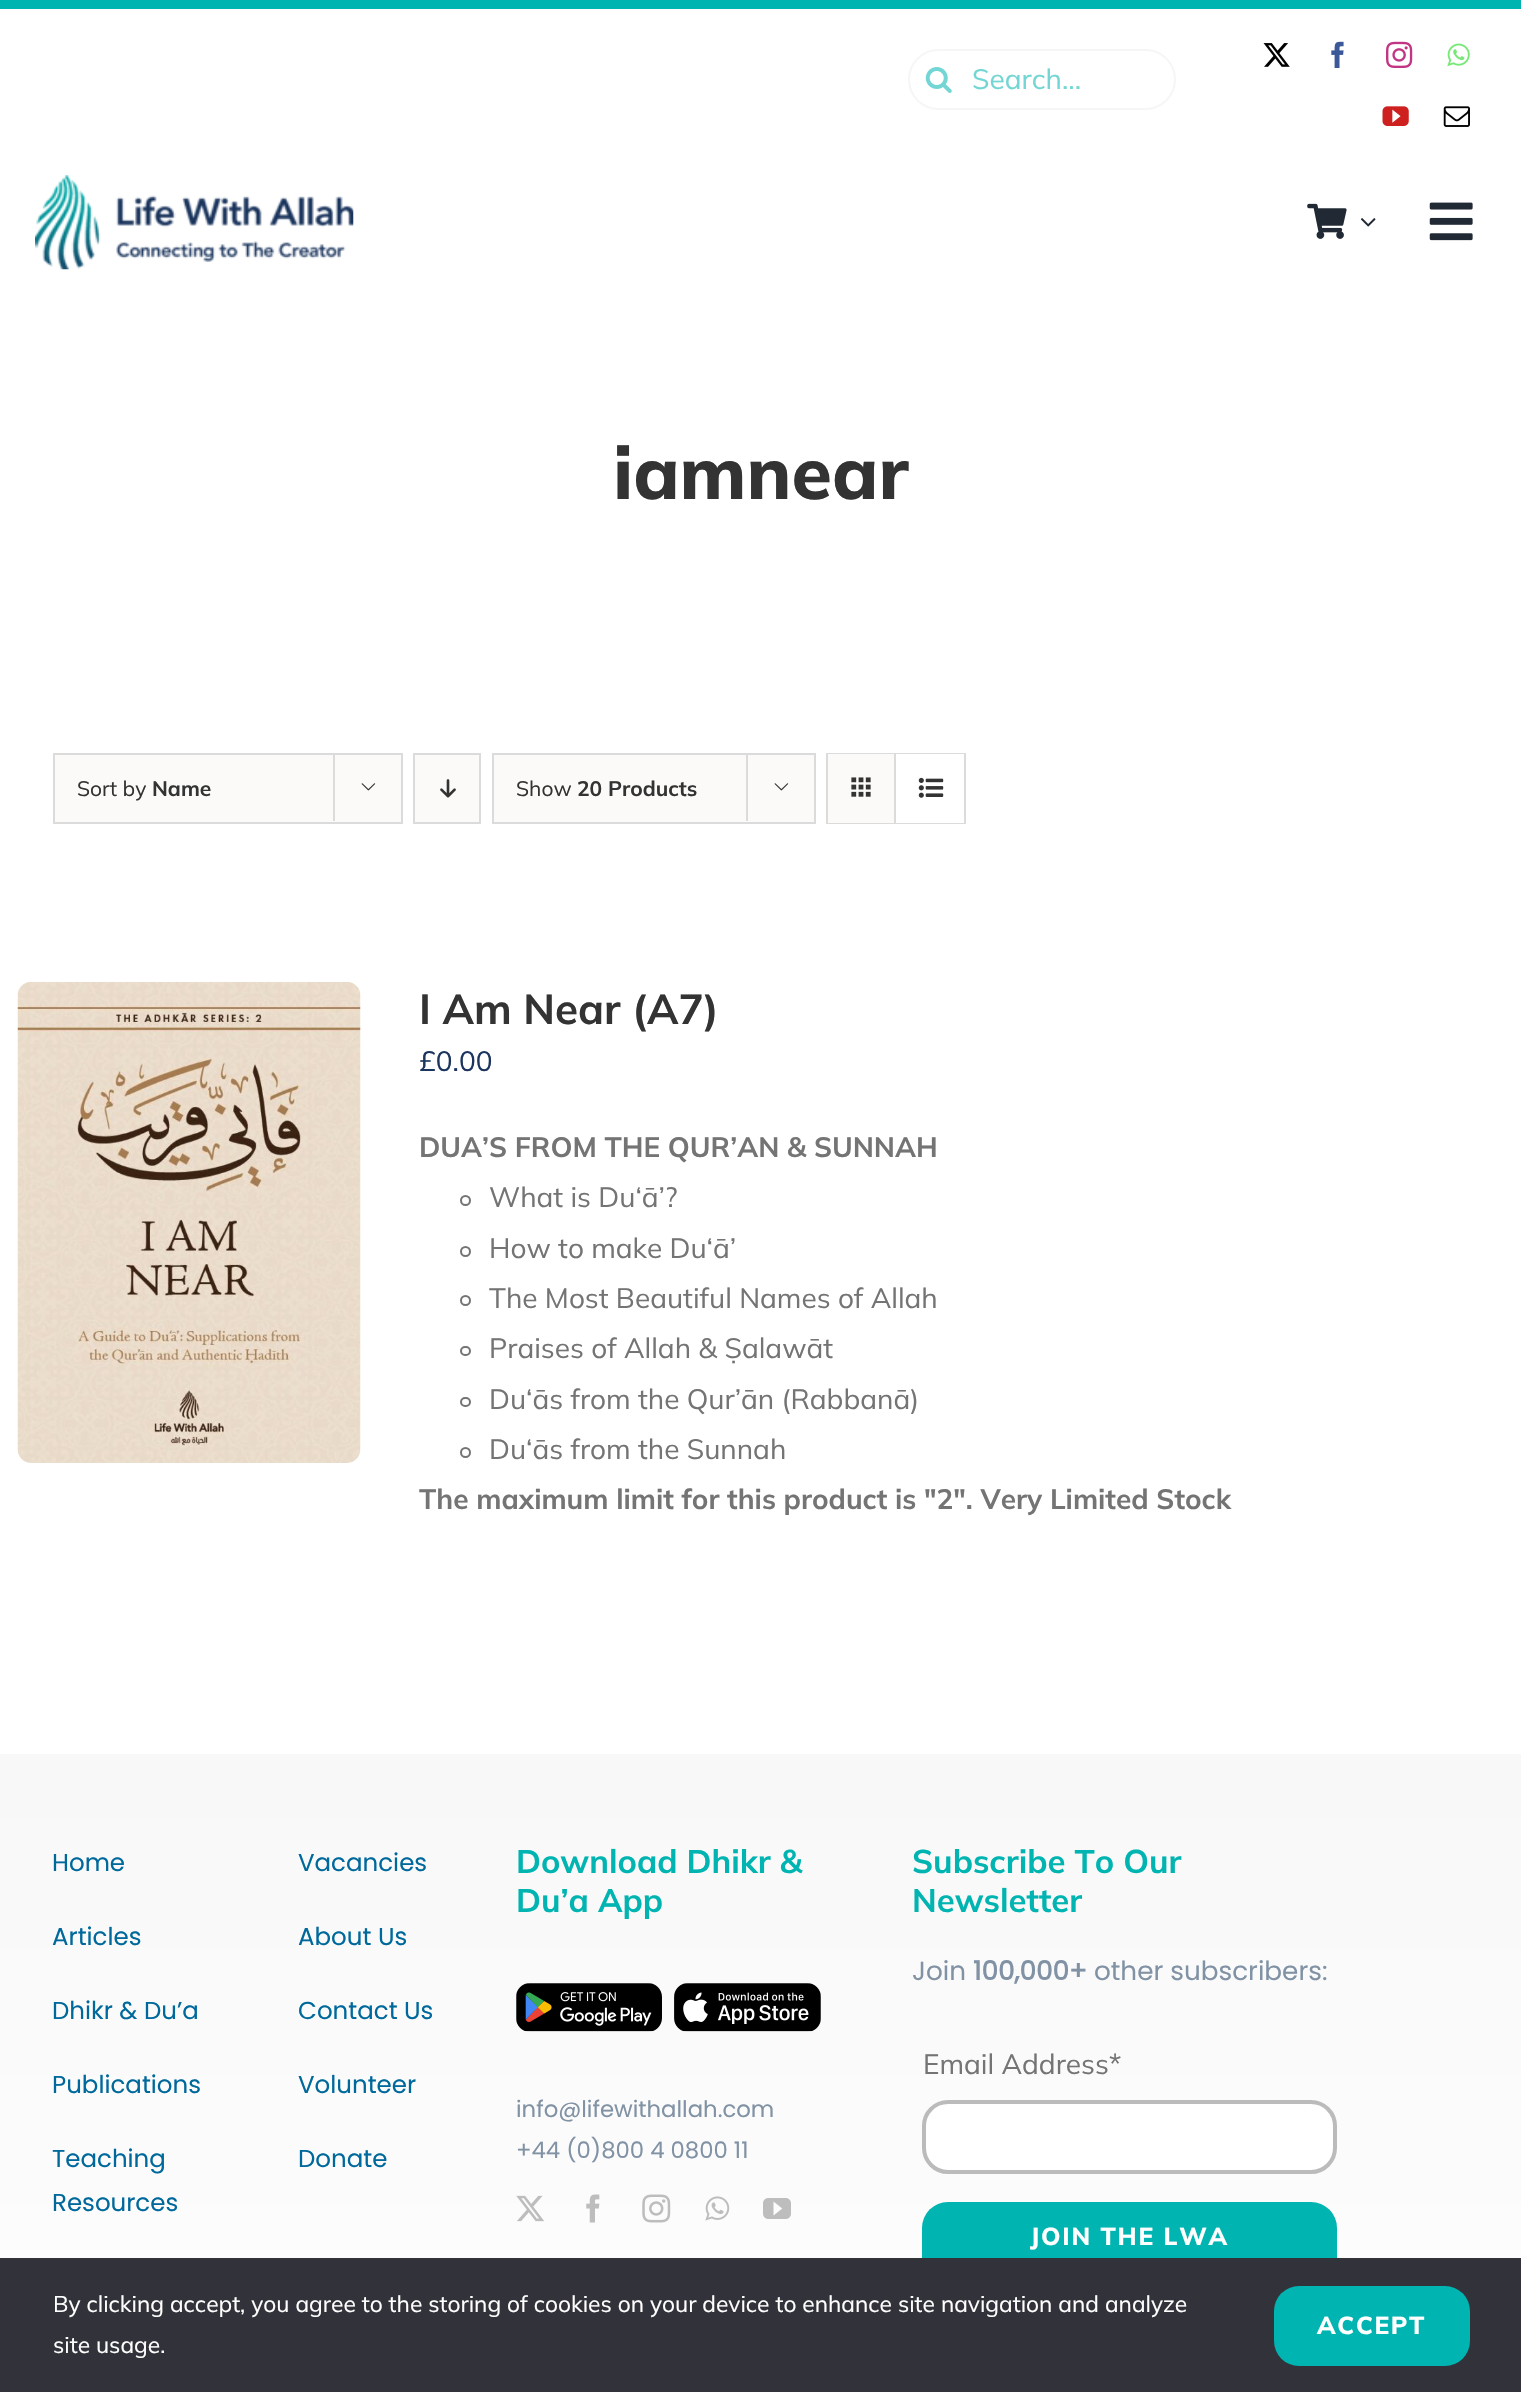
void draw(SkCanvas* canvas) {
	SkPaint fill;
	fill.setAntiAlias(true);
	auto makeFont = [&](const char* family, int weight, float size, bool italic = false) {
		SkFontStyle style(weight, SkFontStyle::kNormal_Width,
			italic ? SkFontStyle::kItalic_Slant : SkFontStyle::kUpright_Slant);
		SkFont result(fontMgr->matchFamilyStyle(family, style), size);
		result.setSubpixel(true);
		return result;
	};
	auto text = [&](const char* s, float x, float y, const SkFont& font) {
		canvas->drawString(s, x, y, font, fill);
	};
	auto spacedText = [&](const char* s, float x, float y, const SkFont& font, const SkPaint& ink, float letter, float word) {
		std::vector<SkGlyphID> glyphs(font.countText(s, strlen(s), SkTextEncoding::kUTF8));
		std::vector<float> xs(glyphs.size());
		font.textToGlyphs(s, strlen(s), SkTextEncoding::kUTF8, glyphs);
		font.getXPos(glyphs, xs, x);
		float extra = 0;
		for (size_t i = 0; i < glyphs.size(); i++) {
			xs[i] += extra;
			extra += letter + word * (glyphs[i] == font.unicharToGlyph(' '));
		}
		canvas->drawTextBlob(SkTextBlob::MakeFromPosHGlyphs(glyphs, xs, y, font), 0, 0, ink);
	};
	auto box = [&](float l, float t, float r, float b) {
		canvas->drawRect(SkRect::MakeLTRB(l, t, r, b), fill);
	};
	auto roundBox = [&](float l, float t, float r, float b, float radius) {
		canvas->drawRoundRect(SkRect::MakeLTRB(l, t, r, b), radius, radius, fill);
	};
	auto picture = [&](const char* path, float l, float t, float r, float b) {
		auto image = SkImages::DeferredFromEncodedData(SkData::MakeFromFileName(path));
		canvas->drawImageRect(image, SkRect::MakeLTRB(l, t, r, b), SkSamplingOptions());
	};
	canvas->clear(0xFFFFFFFF);
	fill.setColor(0xFF00B4B1);
	box(0, 0, 1521, 9);
	fill.setStyle(SkPaint::kStroke_Style);
	fill.setStrokeWidth(2);
	fill.setColor(0xFFF6F6F6);
	canvas->drawRoundRect(SkRect::MakeLTRB(909, 50, 1175, 109), 29.5f, 29.5f, fill);
	picture("image0.png", 925, 67, 952, 93);
	picture("image1.png", 1263, 43, 1290, 67);
	picture("image2.png", 1331, 41, 1344, 68);
	picture("image3.png", 1386, 41, 1413, 68);
	picture("image4.png", 1447, 43, 1470, 67);
	picture("image5.png", 1382, 106, 1409, 126);
	picture("image6.png", 1443, 106, 1470, 127);
	picture("image7.png", 35, 175, 354, 270);
	picture("image8.png", 1307, 203, 1347, 239);
	picture("image9.png", 1360, 218, 1376, 227);
	picture("image10.png", 1429, 202, 1473, 241);
	fill.setStyle(SkPaint::kFill_Style);
	fill.setColor(0xFFFBFAF9);
	canvas->drawRect(SkRect::MakeLTRB(54, 754, 402, 823), fill);
	fill.setStyle(SkPaint::kStroke_Style);
	fill.setColor(0xFFDBDBDB);
	canvas->drawRect(SkRect::MakeLTRB(54, 754, 402, 823), fill);
	fill.setStyle(SkPaint::kFill_Style);
	box(333, 753, 335, 821);
	picture("image11.png", 361, 783, 376, 791);
	fill.setColor(0xFFFBFAF9);
	canvas->drawRect(SkRect::MakeLTRB(414, 754, 480, 823), fill);
	fill.setStyle(SkPaint::kStroke_Style);
	fill.setColor(0xFFDBDBDB);
	canvas->drawRect(SkRect::MakeLTRB(414, 754, 480, 823), fill);
	picture("image12.png", 440, 779, 456, 798);
	fill.setStyle(SkPaint::kFill_Style);
	fill.setColor(0xFFFBFAF9);
	canvas->drawRect(SkRect::MakeLTRB(493, 754, 815, 823), fill);
	fill.setStyle(SkPaint::kStroke_Style);
	fill.setColor(0xFFDBDBDB);
	canvas->drawRect(SkRect::MakeLTRB(493, 754, 815, 823), fill);
	fill.setStyle(SkPaint::kFill_Style);
	box(746, 753, 748, 821);
	picture("image11.png", 774, 783, 789, 791);
	fill.setStyle(SkPaint::kStroke_Style);
	canvas->drawRect(SkRect::MakeLTRB(827, 754, 965, 823), fill);
	fill.setStyle(SkPaint::kFill_Style);
	fill.setColor(0xFFFBFAF9);
	box(828, 754, 894, 823);
	fill.setColor(0xFFDBDBDB);
	box(894, 754, 896, 823);
	picture("image13.png", 851, 777, 871, 797);
	fill.setColor(0xFFFFFFFF);
	box(896, 754, 964, 823);
	picture("image14.png", 918, 777, 944, 798);
	picture("image15.png", 17, 982, 361, 1463);
	fill.setStyle(SkPaint::kStroke_Style);
	fill.setColor(0xFF747474);
	canvas->drawCircle(465.5f, 1200.5f, 4.5f, fill);
	canvas->drawCircle(465.5f, 1251.5f, 4.5f, fill);
	canvas->drawCircle(465.5f, 1300.5f, 4.5f, fill);
	canvas->drawRoundRect(SkRect::MakeLTRB(461, 1347, 470, 1355), 4, 4, fill);
	canvas->drawRoundRect(SkRect::MakeLTRB(461, 1398, 470, 1406), 4, 4, fill);
	canvas->drawCircle(465.5f, 1452.5f, 4.5f, fill);
	fill.setStyle(SkPaint::kFill_Style);
	{
		const SkColor colors[] = {0xFFF8F8F8, 0xFFFFFFFF};
		const float stops[] = {0, 1};
		const SkPoint ends[] = {{761, 1754}, {761, 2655}};
		fill.setShader(SkGradientShader::MakeLinear(ends, colors, stops, 2, SkTileMode::kClamp));
		fill.setAlpha(255);
	}
	box(0, 1754, 1521, 2258);
	picture("image16.png", 516, 1983, 662, 2032);
	picture("image17.png", 674, 1983, 821, 2032);
	picture("image18.png", 516, 2195, 544, 2222);
	picture("image19.png", 586, 2194, 600, 2223);
	picture("image20.png", 642, 2194, 671, 2223);
	picture("image21.png", 705, 2196, 730, 2221);
	picture("image22.png", 763, 2198, 791, 2219);
	fill.setShader(nullptr);
	fill.setColor(0xFFFFFFFF);
	canvas->drawRoundRect(SkRect::MakeLTRB(924, 2102, 1335, 2172), 24, 24, fill);
	fill.setStyle(SkPaint::kStroke_Style);
	fill.setStrokeWidth(4);
	fill.setColor(0xFFBBBBBB);
	canvas->drawRoundRect(SkRect::MakeLTRB(924, 2102, 1335, 2172), 24, 24, fill);
	fill.setStyle(SkPaint::kFill_Style);
	fill.setColor(0xFF00B4B1);
	roundBox(922, 2202, 1337, 2312, 26);
	fill.setColor(0xFF32323A);
	box(0, 2258, 1521, 2392);
	fill.setColor(0xFF00B4B1);
	roundBox(1274, 2286, 1470, 2366, 25);
	auto font1 = makeFont("Mulish", 400, 28);
	fill.setColor(0xFF73D6D4);
	text("Search...", 972, 89, font1);
	auto font2 = makeFont("Mulish", 800, 73.5f);
	fill.setColor(0xFF333333);
	text("iamnear", 613, 499, font2);
	auto font3 = makeFont("Mulish", 400, 21);
	text("Sort by", 77, 796, font3);
	auto font4 = makeFont("Mulish", 700, 21);
	text("Name", 152, 796, font4);
	text("Show", 516, 796, font3);
	text("20 Products", 577, 796, font4);
	auto font5 = makeFont("Mulish", 700, 42);
	text("I Am Near (A7)", 419, 1024, font5);
	fill.setColor(0xFF1C355E);
	text("£0.00", 419, 1071, font1);
	auto font6 = makeFont("Mulish", 700, 28);
	fill.setColor(0xFF747474);
	text("DUA’S FROM THE QUR’AN & SUNNAH", 419, 1157, font6);
	text("What is Du‘ā’?", 489, 1207, font1);
	text("How to make Du‘ā’", 489, 1258, font1);
	text("The Most Beautiful Names of Allah", 489, 1308, font1);
	text("Praises of Allah & Ṣalawāt", 489, 1358, font1);
	text("Du‘ās from the Qur’ān (Rabbanā)", 489, 1409, font1);
	text("Du‘ās from the Sunnah", 489, 1459, font1);
	text("The maximum limit for this product is \"2\". Very Limited Stock", 419, 1509, font6);
	auto font7 = makeFont("Poppins", 400, 24.5f);
	fill.setColor(0xFF00699C);
	text("Home", 52, 1871, font7);
	text("Articles", 52, 1945, font7);
	text("Dhikr & Du’a", 52, 2019, font7);
	text("Publications", 52, 2093, font7);
	text("Teaching", 52, 2167, font7);
	text("Resources", 52, 2211, font7);
	text("Vacancies", 298, 1871, font7);
	text("About Us", 298, 1945, font7);
	text("Contact Us", 298, 2019, font7);
	text("Volunteer", 298, 2093, font7);
	text("Donate", 298, 2167, font7);
	auto font8 = makeFont("Mulish", 700, 32.75f);
	fill.setColor(0xFF00B4B1);
	text("Download Dhikr &", 516, 1873, font8);
	text("Du’a App", 516, 1912, font8);
	auto font9 = makeFont("Poppins", 400, 22.75f);
	fill.setColor(0xFF8192A5);
	text("info@lifewithallah.com", 516, 2117, font9);
	text("+44 (0)800 4 0800 11", 516, 2158, font9);
	fill.setColor(0xFF00B4B1);
	text("Subscribe To Our", 912, 1873, font8);
	text("Newsletter", 912, 1912, font8);
	auto font10 = makeFont("Poppins", 400, 26.25f);
	fill.setColor(0xFF8192A5);
	text("Join", 912, 1980, font10);
	auto font11 = makeFont("Poppins", 700, 26.25f);
	text("100,000+", 973, 1980, font11);
	text("other subscribers:", 1094, 1980, font10);
	fill.setColor(0xFF747474);
	text("Email Address*", 923, 2074, font1);
	auto font12 = makeFont("Mulish", 800, 24.5f);
	fill.setColor(0xFFFFFFFF);
	spacedText("JOIN THE LWA", 1030, 2245, font12, fill, 1.75f, 0);
	auto font13 = makeFont("Mulish", 400, 22.75f);
	text("By clicking accept, you agree to the storing of cookies on your device to enhance site navigation and analyze", 53, 2312, font13);
	text("site usage.", 53, 2353, font13);
	spacedText("ACCEPT", 1317, 2334, font12, fill, 1.75f, 0);
}
